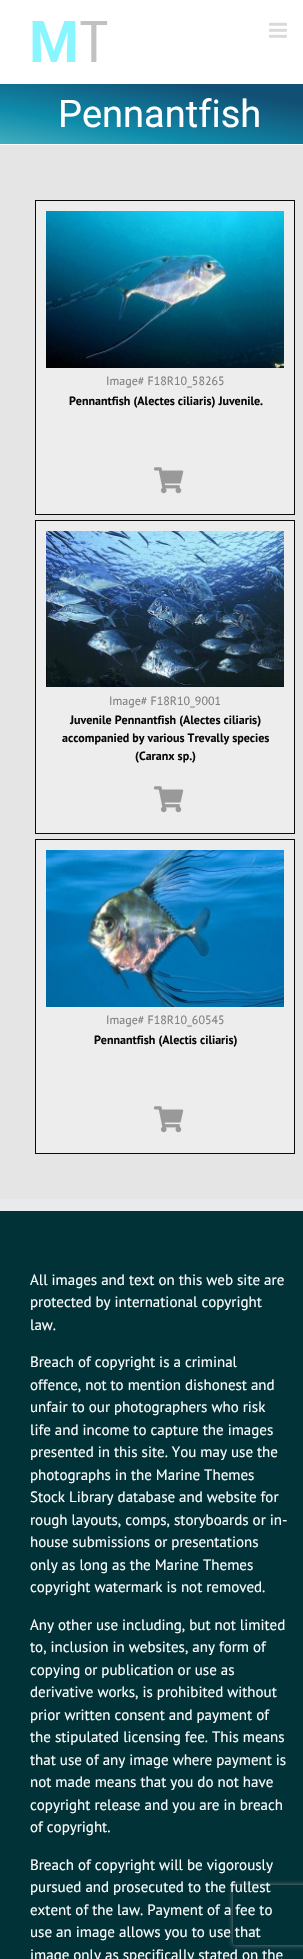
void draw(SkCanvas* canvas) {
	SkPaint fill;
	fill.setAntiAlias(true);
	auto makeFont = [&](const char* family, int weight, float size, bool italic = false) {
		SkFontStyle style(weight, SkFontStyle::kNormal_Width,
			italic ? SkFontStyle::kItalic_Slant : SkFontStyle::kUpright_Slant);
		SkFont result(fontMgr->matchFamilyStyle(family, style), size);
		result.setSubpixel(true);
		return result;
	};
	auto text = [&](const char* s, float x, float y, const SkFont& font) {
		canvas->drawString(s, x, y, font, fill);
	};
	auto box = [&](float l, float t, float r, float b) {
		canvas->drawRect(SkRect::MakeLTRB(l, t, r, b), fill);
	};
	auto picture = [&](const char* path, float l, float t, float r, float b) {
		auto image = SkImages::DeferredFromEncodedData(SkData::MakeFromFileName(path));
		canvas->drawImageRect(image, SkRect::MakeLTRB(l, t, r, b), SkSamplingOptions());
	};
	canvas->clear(0xFFE5E5E5);
	fill.setColor(0xFFFFFFFF);
	box(0, 0, 303, 84);
	picture("image0.png", 32, 21, 108, 62);
	picture("image1.png", 269, 22, 287, 38);
	{
		const SkColor colors[] = {0xFF44AEBF, 0xFF0F8CAB, 0xFF124F74};
		const float stops[] = {0, 0.3f, 0.8f};
		const SkPoint ends[] = {{150, 171}, {170, 57}};
		fill.setShader(SkGradientShader::MakeLinear(ends, colors, stops, 3, SkTileMode::kClamp));
		fill.setAlpha(255);
	}
	box(0, 84, 303, 144);
	fill.setShader(nullptr);
	fill.setColor(0xFFFFFFFF);
	box(0, 144, 303, 145);
	fill.setColor(0xFFEDEDED);
	canvas->drawRect(SkRect::MakeLTRB(35.5f, 200.5f, 294.5f, 514.5f), fill);
	fill.setStyle(SkPaint::kStroke_Style);
	fill.setStrokeWidth(1);
	fill.setColor(0xFF0A0A0A);
	canvas->drawRect(SkRect::MakeLTRB(35.5f, 200.5f, 294.5f, 514.5f), fill);
	picture("image2.png", 46, 211, 284, 368);
	picture("image3.png", 154, 467, 184, 494);
	fill.setStyle(SkPaint::kFill_Style);
	fill.setColor(0xFFEDEDED);
	canvas->drawRect(SkRect::MakeLTRB(35.5f, 520.5f, 294.5f, 833.5f), fill);
	fill.setStyle(SkPaint::kStroke_Style);
	fill.setColor(0xFF0A0A0A);
	canvas->drawRect(SkRect::MakeLTRB(35.5f, 520.5f, 294.5f, 833.5f), fill);
	picture("image4.png", 46, 531, 284, 687);
	picture("image3.png", 154, 786, 184, 813);
	fill.setStyle(SkPaint::kFill_Style);
	fill.setColor(0xFFEDEDED);
	canvas->drawRect(SkRect::MakeLTRB(35.5f, 839.5f, 294.5f, 1153.5f), fill);
	fill.setStyle(SkPaint::kStroke_Style);
	fill.setColor(0xFF0A0A0A);
	canvas->drawRect(SkRect::MakeLTRB(35.5f, 839.5f, 294.5f, 1153.5f), fill);
	picture("image5.png", 46, 850, 284, 1007);
	picture("image3.png", 154, 1106, 184, 1133);
	fill.setStyle(SkPaint::kFill_Style);
	fill.setColor(0xFF003238);
	box(0, 1211, 303, 1959);
	fill.setColor(0xFFE9EAEE);
	box(0, 1199, 303, 1211);
	canvas->save();
	canvas->clipPath(SkPathBuilder(SkPathFillType::kEvenOdd).moveTo(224, 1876).lineTo(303, 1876).lineTo(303, 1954).lineTo(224, 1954).close().moveTo(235, 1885).lineTo(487, 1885).cubicTo(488, 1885, 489, 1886, 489, 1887).lineTo(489, 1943).cubicTo(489, 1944, 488, 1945, 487, 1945).lineTo(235, 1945).cubicTo(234, 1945, 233, 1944, 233, 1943).lineTo(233, 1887).cubicTo(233, 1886, 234, 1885, 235, 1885).close().detach(), true);
	fill.setColor(0xFF808080);
	fill.setMaskFilter(SkMaskFilter::MakeBlur(kNormal_SkBlurStyle, 2.5f));
	canvas->drawRoundRect(SkRect::MakeLTRB(233, 1885, 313, 1945), 2, 2, fill);
	fill.setMaskFilter(nullptr);
	canvas->restore();
	auto font1 = makeFont("Roboto", 400, 38);
	fill.setColor(0xFFFFFFFF);
	text("Pennantfish", 58, 127, font1);
	auto font2 = makeFont("PT Sans", 400, 12);
	fill.setColor(0xFF808080);
	text("Image# F18R10_58265", 106, 385, font2);
	auto font3 = makeFont("PT Sans", 700, 12);
	fill.setColor(0xFF0A0A0A);
	text("Pennantfish (Alectes ciliaris) Juvenile.", 69, 405, font3);
	fill.setColor(0xFF808080);
	text("Image# F18R10_9001", 109, 705, font2);
	fill.setColor(0xFF0A0A0A);
	text("Juvenile Pennantfish (Alectes ciliaris)", 70, 724, font3);
	text("accompanied by various Trevally species", 62, 742, font3);
	text("(Caranx sp.)", 135, 760, font3);
	fill.setColor(0xFF808080);
	text("Image# F18R10_60545", 106, 1024, font2);
	fill.setColor(0xFF0A0A0A);
	text("Pennantfish (Alectis ciliaris)", 94, 1044, font3);
	auto font4 = makeFont("PT Sans", 400, 15);
	fill.setColor(0xFFFFFFFF);
	text("All images and text on this web site are", 30, 1285, font4);
	text("protected by international copyright", 30, 1307, font4);
	text("law.", 30, 1330, font4);
	text("Breach of copyright is a criminal", 30, 1367, font4);
	text("offence, not to mention dishonest and", 30, 1390, font4);
	text("unfair to our photographers who risk", 30, 1412, font4);
	text("life and income to capture the images", 30, 1435, font4);
	text("presented in this site. You may use the", 30, 1457, font4);
	text("photographs in the Marine Themes", 30, 1480, font4);
	text("Stock Library database and website for", 30, 1502, font4);
	text("rough layouts, comps, storyboards or in-", 30, 1525, font4);
	text("house submissions or presentations", 30, 1547, font4);
	text("only as long as the Marine Themes", 30, 1570, font4);
	text("copyright watermark is not removed.", 30, 1592, font4);
	text("Any other use including, but not limited", 30, 1630, font4);
	text("to, inclusion in websites, any form of", 30, 1652, font4);
	text("copying or publication or use as", 30, 1675, font4);
	text("derivative works, is prohibited without", 30, 1697, font4);
	text("prior written consent and payment of", 30, 1720, font4);
	text("the stipulated licensing fee. This means", 30, 1742, font4);
	text("that use of any image where payment is", 30, 1765, font4);
	text("not made means that you do not have", 30, 1787, font4);
	text("copyright release and you are in breach", 30, 1810, font4);
	text("of copyright.", 30, 1832, font4);
	text("Breach of copyright will be vigorously", 30, 1870, font4);
	text("pursued and prosecuted to the fullest", 30, 1892, font4);
	text("extent of the law. Payment of a fee to", 30, 1915, font4);
	text("use an image allows you to use that", 30, 1937, font4);
	text("image only as specifically stated on the", 30, 1960, font4);
}
